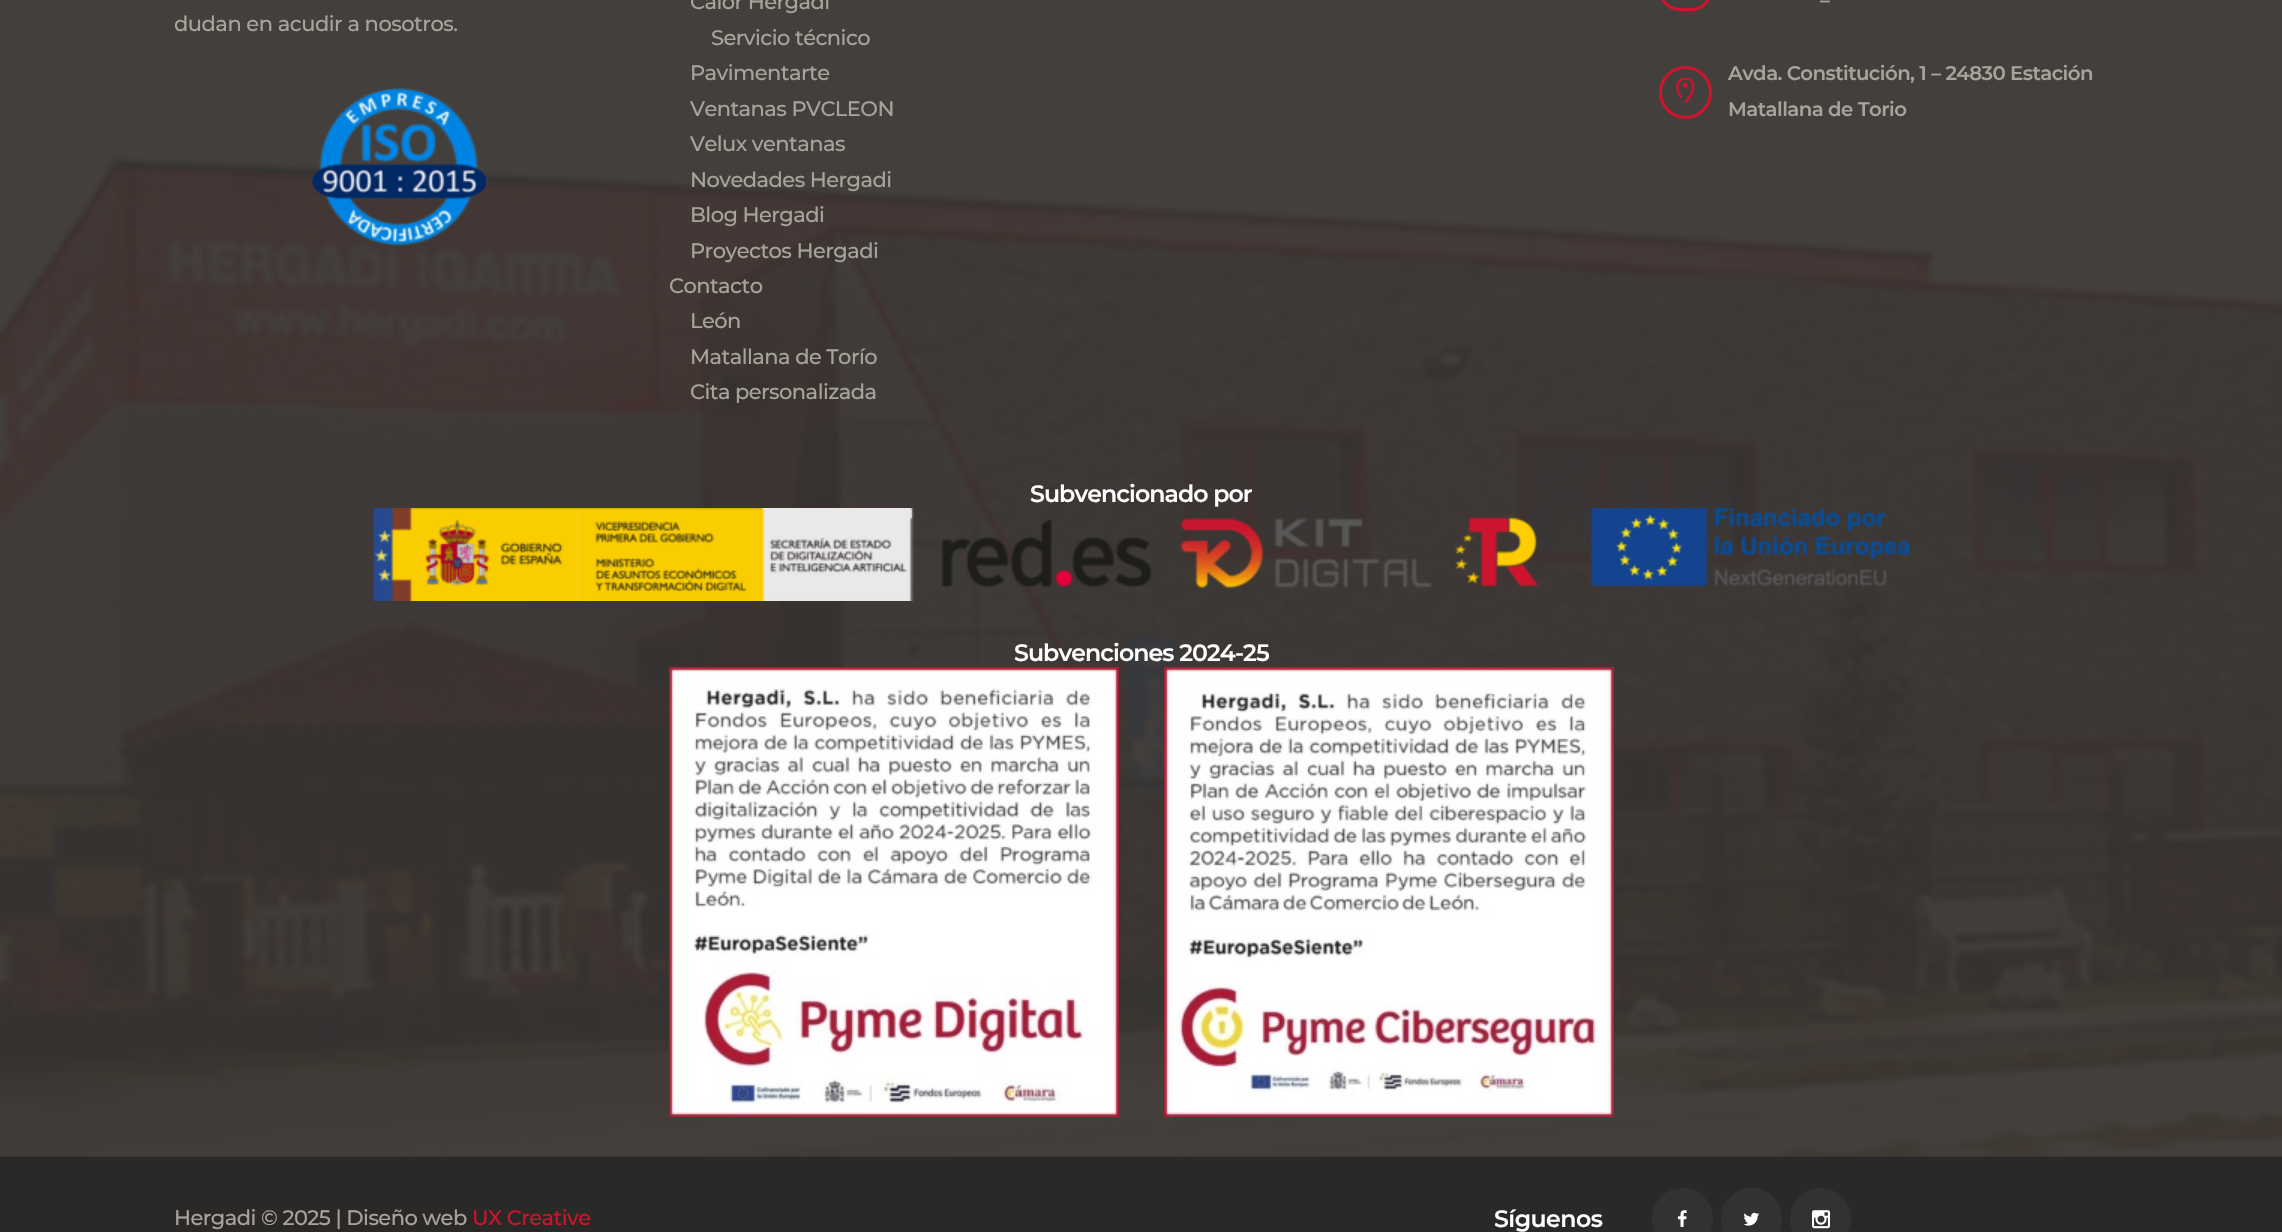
void draw(SkCanvas* canvas) {
	SkPaint fill;
	fill.setAntiAlias(true);
	auto makeFont = [&](const char* family, int weight, float size, bool italic = false) {
		SkFontStyle style(weight, SkFontStyle::kNormal_Width,
			italic ? SkFontStyle::kItalic_Slant : SkFontStyle::kUpright_Slant);
		SkFont result(fontMgr->matchFamilyStyle(family, style), size);
		result.setSubpixel(true);
		return result;
	};
	auto spacedText = [&](const char* s, float x, float y, const SkFont& font, const SkPaint& ink, float letter, float word) {
		std::vector<SkGlyphID> glyphs(font.countText(s, strlen(s), SkTextEncoding::kUTF8));
		std::vector<float> xs(glyphs.size());
		font.textToGlyphs(s, strlen(s), SkTextEncoding::kUTF8, glyphs);
		font.getXPos(glyphs, xs, x);
		float extra = 0;
		for (size_t i = 0; i < glyphs.size(); i++) {
			xs[i] += extra;
			extra += letter + word * (glyphs[i] == font.unicharToGlyph(' '));
		}
		canvas->drawTextBlob(SkTextBlob::MakeFromPosHGlyphs(glyphs, xs, y, font), 0, 0, ink);
	};
	auto box = [&](float l, float t, float r, float b) {
		canvas->drawRect(SkRect::MakeLTRB(l, t, r, b), fill);
	};
	auto roundBox = [&](float l, float t, float r, float b, float radius) {
		canvas->drawRoundRect(SkRect::MakeLTRB(l, t, r, b), radius, radius, fill);
	};
	auto picture = [&](const char* path, float l, float t, float r, float b) {
		auto image = SkImages::DeferredFromEncodedData(SkData::MakeFromFileName(path));
		canvas->drawImageRect(image, SkRect::MakeLTRB(l, t, r, b), SkSamplingOptions());
	};
	canvas->clear(0xFF393533);
	picture("image0.png", 0, 0, 2282, 1156);
	picture("image1.png", 310, 87, 489, 246);
	fill.setStyle(SkPaint::kStroke_Style);
	fill.setStrokeWidth(3);
	fill.setColor(0xFFCF142B);
	canvas->drawRoundRect(SkRect::MakeLTRB(1660.5f, -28.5f, 1710.5f, 9.5f), 25, 25, fill);
	canvas->drawCircle(1685.5f, 92.5f, 25, fill);
	picture("image2.png", 1676, 77, 1695, 103);
	picture("image3.png", 373, 508, 1910, 601);
	picture("image4.png", 669, 667, 1119, 1117);
	picture("image5.png", 1164, 667, 1614, 1117);
	fill.setStyle(SkPaint::kFill_Style);
	fill.setColor(0xFF2B2828);
	box(0, 1157, 2282, 1232);
	fill.setColor(0xFF333131);
	roundBox(1652, 1188, 1713, 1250, 30.5f);
	picture("image6.png", 1677, 1210, 1687, 1227);
	roundBox(1721, 1188, 1782, 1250, 30.5f);
	picture("image7.png", 1743, 1212, 1760, 1226);
	roundBox(1790, 1188, 1851, 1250, 30.5f);
	picture("image8.png", 1812, 1210, 1830, 1229);
	auto font1 = makeFont("Montserrat", 500, 21);
	fill.setColor(0xFFA6A49A);
	spacedText("dudan en acudir a nosotros.", 174, 31, font1, fill, -0.5f, 0);
	spacedText("Calor Hergadi", 690, 9, font1, fill, -0.55f, 0);
	spacedText("Servicio técnico", 711, 45, font1, fill, -0.55f, 0);
	spacedText("Pavimentarte", 690, 80, font1, fill, -0.55f, 0);
	spacedText("Ventanas PVCLEON", 690, 116, font1, fill, -0.55f, 0);
	spacedText("Velux ventanas", 690, 151, font1, fill, -0.55f, 0);
	spacedText("Novedades Hergadi", 690, 187, font1, fill, -0.55f, 0);
	spacedText("Blog Hergadi", 690, 222, font1, fill, -0.55f, 0);
	spacedText("Proyectos Hergadi", 690, 258, font1, fill, -0.55f, 0);
	spacedText("Contacto", 669, 293, font1, fill, -0.55f, 0);
	spacedText("León", 690, 328, font1, fill, -0.55f, 0);
	spacedText("Matallana de Torío", 690, 364, font1, fill, -0.55f, 0);
	spacedText("Cita personalizada", 690, 399, font1, fill, -0.55f, 0);
	auto font2 = makeFont("Montserrat", 600, 19.75f);
	spacedText("–", 1820, 7, font2, fill, -0.55f, 0);
	spacedText("Avda. Constitución, 1 – 24830 Estación", 1728, 80, font2, fill, -0.55f, 0);
	spacedText("Matallana de Torio", 1728, 116, font2, fill, -0.55f, 0);
	auto font3 = makeFont("Montserrat", 600, 23.6f);
	fill.setColor(0xFFFFFFFF);
	spacedText("Subvencionado por", 1030, 502, font3, fill, -0.9f, 0);
	spacedText("Subvenciones 2024-25", 1014, 661, font3, fill, -0.9f, 0);
	fill.setColor(0xFFA6A49A);
	spacedText("Hergadi © 2025 | Diseño web", 174, 1225, font1, fill, -0.55f, 0);
	fill.setColor(0xFFCD142B);
	spacedText("UX Creative", 472, 1225, font1, fill, -0.55f, 0);
	fill.setColor(0xFFFFFFFF);
	spacedText("Síguenos", 1494, 1227, font3, fill, -0.5f, 0);
}
